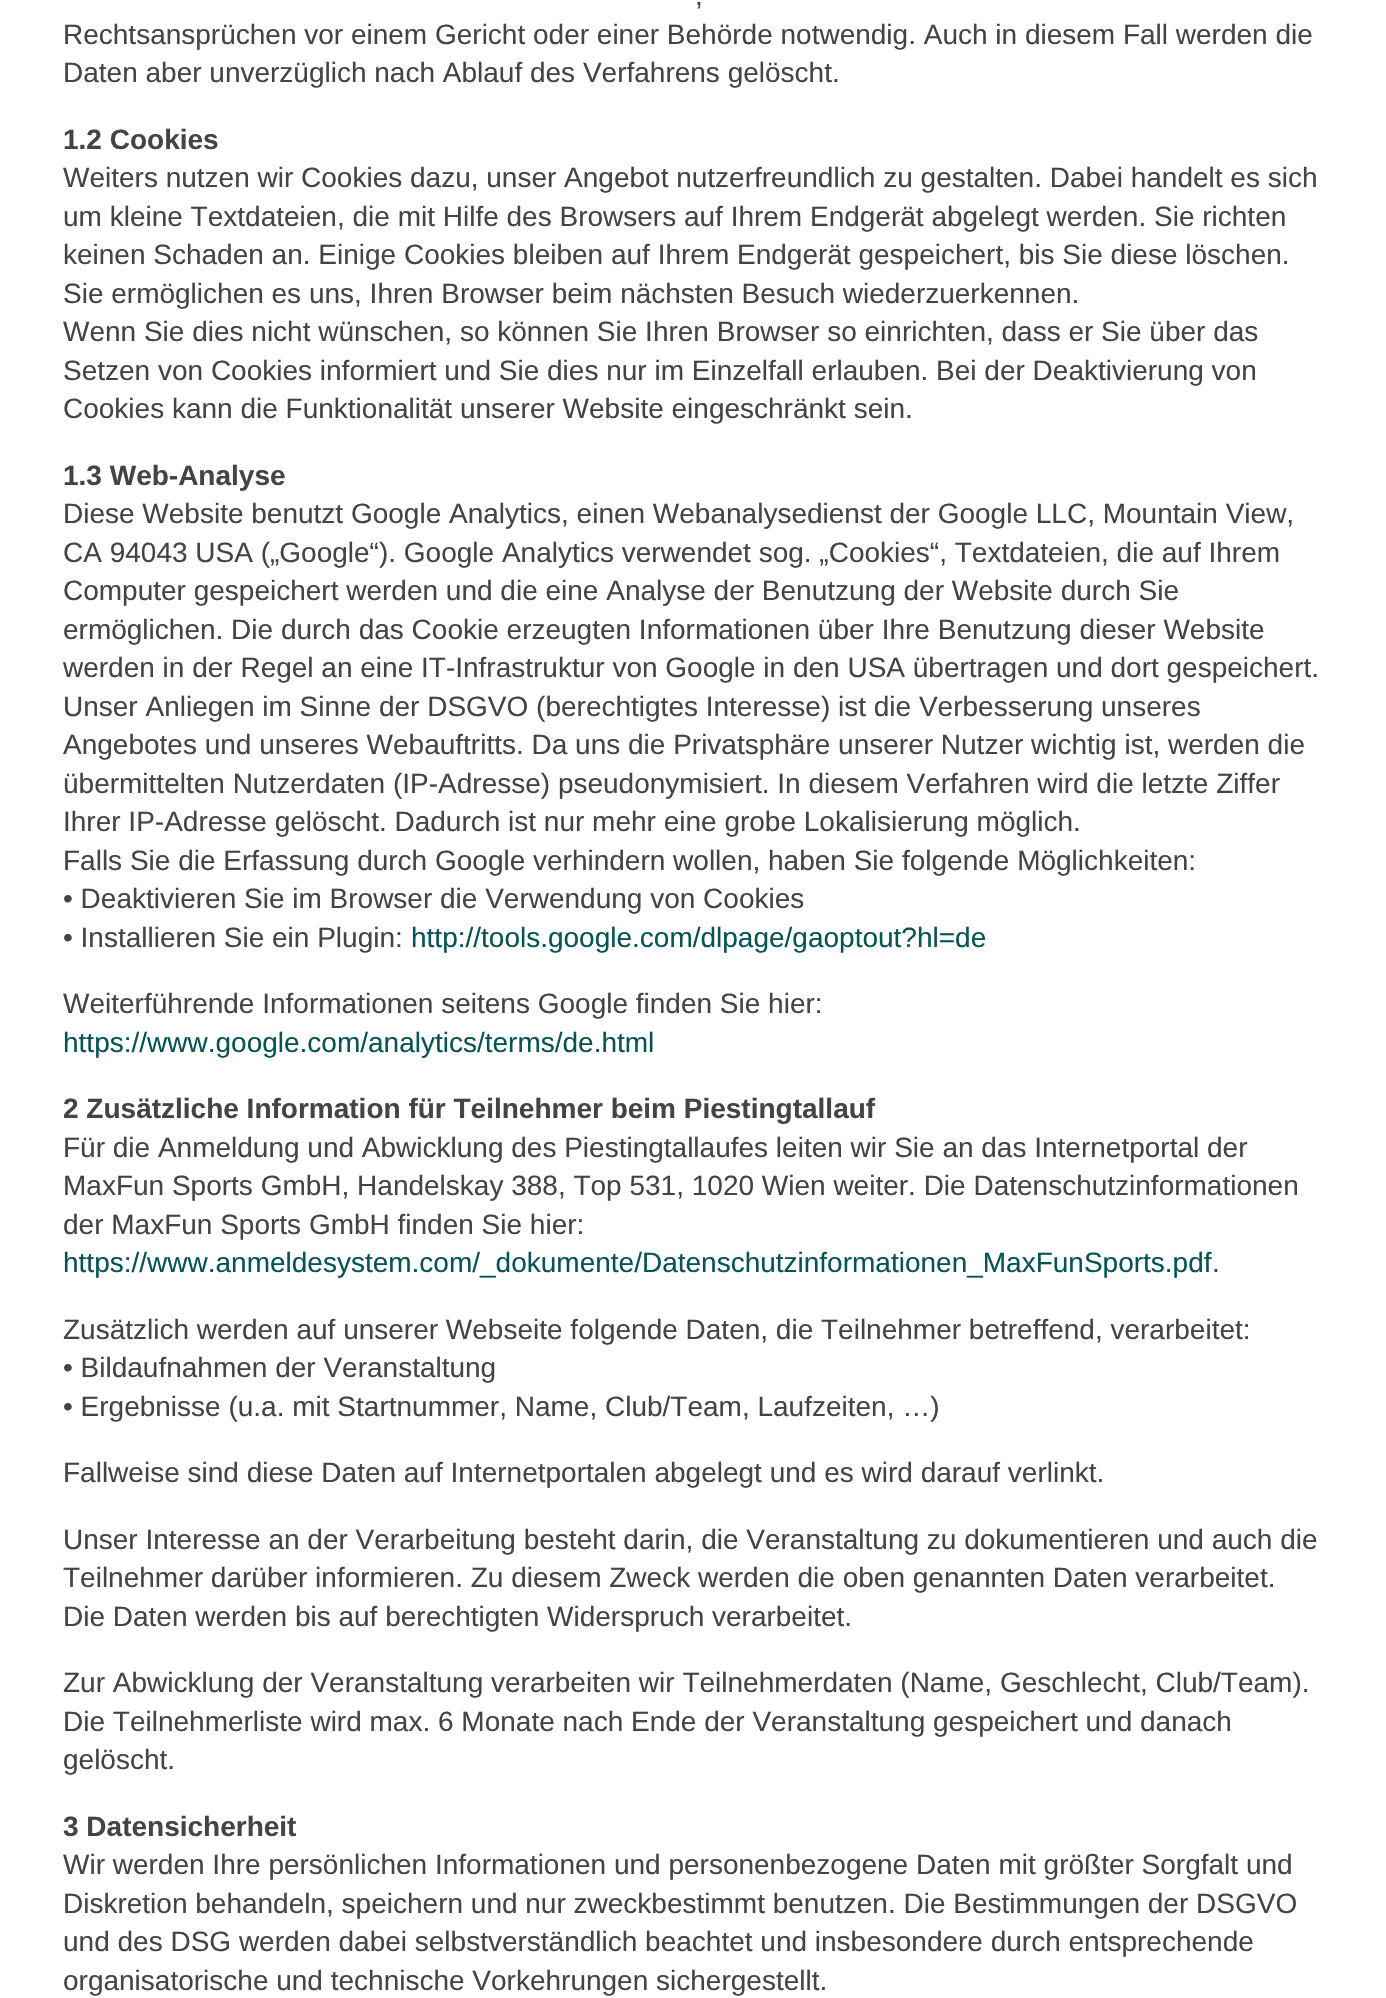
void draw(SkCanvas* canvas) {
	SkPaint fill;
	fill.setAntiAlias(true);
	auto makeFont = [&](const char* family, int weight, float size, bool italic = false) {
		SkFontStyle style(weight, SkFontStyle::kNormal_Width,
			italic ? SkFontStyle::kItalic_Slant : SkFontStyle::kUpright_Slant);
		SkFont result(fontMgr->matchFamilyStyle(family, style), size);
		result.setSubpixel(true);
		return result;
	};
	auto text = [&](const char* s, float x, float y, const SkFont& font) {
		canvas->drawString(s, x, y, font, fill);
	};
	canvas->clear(0xFFFFFFFF);
	auto font1 = makeFont("Liberation Sans", 400, 28);
	fill.setColor(0xFF444444);
	text(",", 695, 5, font1);
	text("Rechtsansprüchen vor einem Gericht oder einer Behörde notwendig. Auch in diesem Fall werden die", 63, 44, font1);
	text("Daten aber unverzüglich nach Ablauf des Verfahrens gelöscht.", 63, 82, font1);
	auto font2 = makeFont("Liberation Sans", 700, 28);
	text("1.2 Cookies", 63, 149, font2);
	text("Weiters nutzen wir Cookies dazu, unser Angebot nutzerfreundlich zu gestalten. Dabei handelt es sich", 63, 187, font1);
	text("um kleine Textdateien, die mit Hilfe des Browsers auf Ihrem Endgerät abgelegt werden. Sie richten", 63, 226, font1);
	text("keinen Schaden an. Einige Cookies bleiben auf Ihrem Endgerät gespeichert, bis Sie diese löschen.", 63, 264, font1);
	text("Sie ermöglichen es uns, Ihren Browser beim nächsten Besuch wiederzuerkennen.", 63, 303, font1);
	text("Wenn Sie dies nicht wünschen, so können Sie Ihren Browser so einrichten, dass er Sie über das", 63, 341, font1);
	text("Setzen von Cookies informiert und Sie dies nur im Einzelfall erlauben. Bei der Deaktivierung von", 63, 380, font1);
	text("Cookies kann die Funktionalität unserer Website eingeschränkt sein.", 63, 418, font1);
	text("1.3 Web-Analyse", 63, 485, font2);
	text("Diese Website benutzt Google Analytics, einen Webanalysedienst der Google LLC, Mountain View,", 63, 523, font1);
	text("CA 94043 USA („Google“). Google Analytics verwendet sog. „Cookies“, Textdateien, die auf Ihrem", 63, 562, font1);
	text("Computer gespeichert werden und die eine Analyse der Benutzung der Website durch Sie", 63, 600, font1);
	text("ermöglichen. Die durch das Cookie erzeugten Informationen über Ihre Benutzung dieser Website", 63, 639, font1);
	text("werden in der Regel an eine IT-Infrastruktur von Google in den USA übertragen und dort gespeichert.", 63, 677, font1);
	text("Unser Anliegen im Sinne der DSGVO (berechtigtes Interesse) ist die Verbesserung unseres", 63, 716, font1);
	text("Angebotes und unseres Webauftritts. Da uns die Privatsphäre unserer Nutzer wichtig ist, werden die", 63, 754, font1);
	text("übermittelten Nutzerdaten (IP-Adresse) pseudonymisiert. In diesem Verfahren wird die letzte Ziffer", 63, 793, font1);
	text("Ihrer IP-Adresse gelöscht. Dadurch ist nur mehr eine grobe Lokalisierung möglich.", 63, 831, font1);
	text("Falls Sie die Erfassung durch Google verhindern wollen, haben Sie folgende Möglichkeiten:", 63, 870, font1);
	text("• Deaktivieren Sie im Browser die Verwendung von Cookies", 63, 908, font1);
	text("• Installieren Sie ein Plugin:", 63, 947, font1);
	fill.setColor(0xFF065454);
	text("http://tools.google.com/dlpage/gaoptout?hl=de", 411, 947, font1);
	fill.setColor(0xFF444444);
	text("Weiterführende Informationen seitens Google finden Sie hier:", 63, 1013, font1);
	fill.setColor(0xFF065454);
	text("https://www.google.com/analytics/terms/de.html", 63, 1052, font1);
	fill.setColor(0xFF444444);
	text("2 Zusätzliche Information für Teilnehmer beim Piestingtallauf", 63, 1118, font2);
	text("Für die Anmeldung und Abwicklung des Piestingtallaufes leiten wir Sie an das Internetportal der", 63, 1157, font1);
	text("MaxFun Sports GmbH, Handelskay 388, Top 531, 1020 Wien weiter. Die Datenschutzinformationen", 63, 1195, font1);
	text("der MaxFun Sports GmbH finden Sie hier:", 63, 1234, font1);
	fill.setColor(0xFF065454);
	text("https://www.anmeldesystem.com/_dokumente/Datenschutzinformationen_MaxFunSports.pdf", 63, 1272, font1);
	fill.setColor(0xFF444444);
	text(".", 1212, 1272, font1);
	text("Zusätzlich werden auf unserer Webseite folgende Daten, die Teilnehmer betreffend, verarbeitet:", 63, 1339, font1);
	text("• Bildaufnahmen der Veranstaltung", 63, 1377, font1);
	text("• Ergebnisse (u.a. mit Startnummer, Name, Club/Team, Laufzeiten, …)", 63, 1416, font1);
	text("Fallweise sind diese Daten auf Internetportalen abgelegt und es wird darauf verlinkt.", 63, 1482, font1);
	text("Unser Interesse an der Verarbeitung besteht darin, die Veranstaltung zu dokumentieren und auch die", 63, 1549, font1);
	text("Teilnehmer darüber informieren. Zu diesem Zweck werden die oben genannten Daten verarbeitet.", 63, 1587, font1);
	text("Die Daten werden bis auf berechtigten Widerspruch verarbeitet.", 63, 1626, font1);
	text("Zur Abwicklung der Veranstaltung verarbeiten wir Teilnehmerdaten (Name, Geschlecht, Club/Team).", 63, 1692, font1);
	text("Die Teilnehmerliste wird max. 6 Monate nach Ende der Veranstaltung gespeichert und danach", 63, 1731, font1);
	text("gelöscht.", 63, 1769, font1);
	text("3 Datensicherheit", 63, 1836, font2);
	text("Wir werden Ihre persönlichen Informationen und personenbezogene Daten mit größter Sorgfalt und", 63, 1874, font1);
	text("Diskretion behandeln, speichern und nur zweckbestimmt benutzen. Die Bestimmungen der DSGVO", 63, 1913, font1);
	text("und des DSG werden dabei selbstverständlich beachtet und insbesondere durch entsprechende", 63, 1951, font1);
	text("organisatorische und technische Vorkehrungen sichergestellt.", 63, 1990, font1);
}
